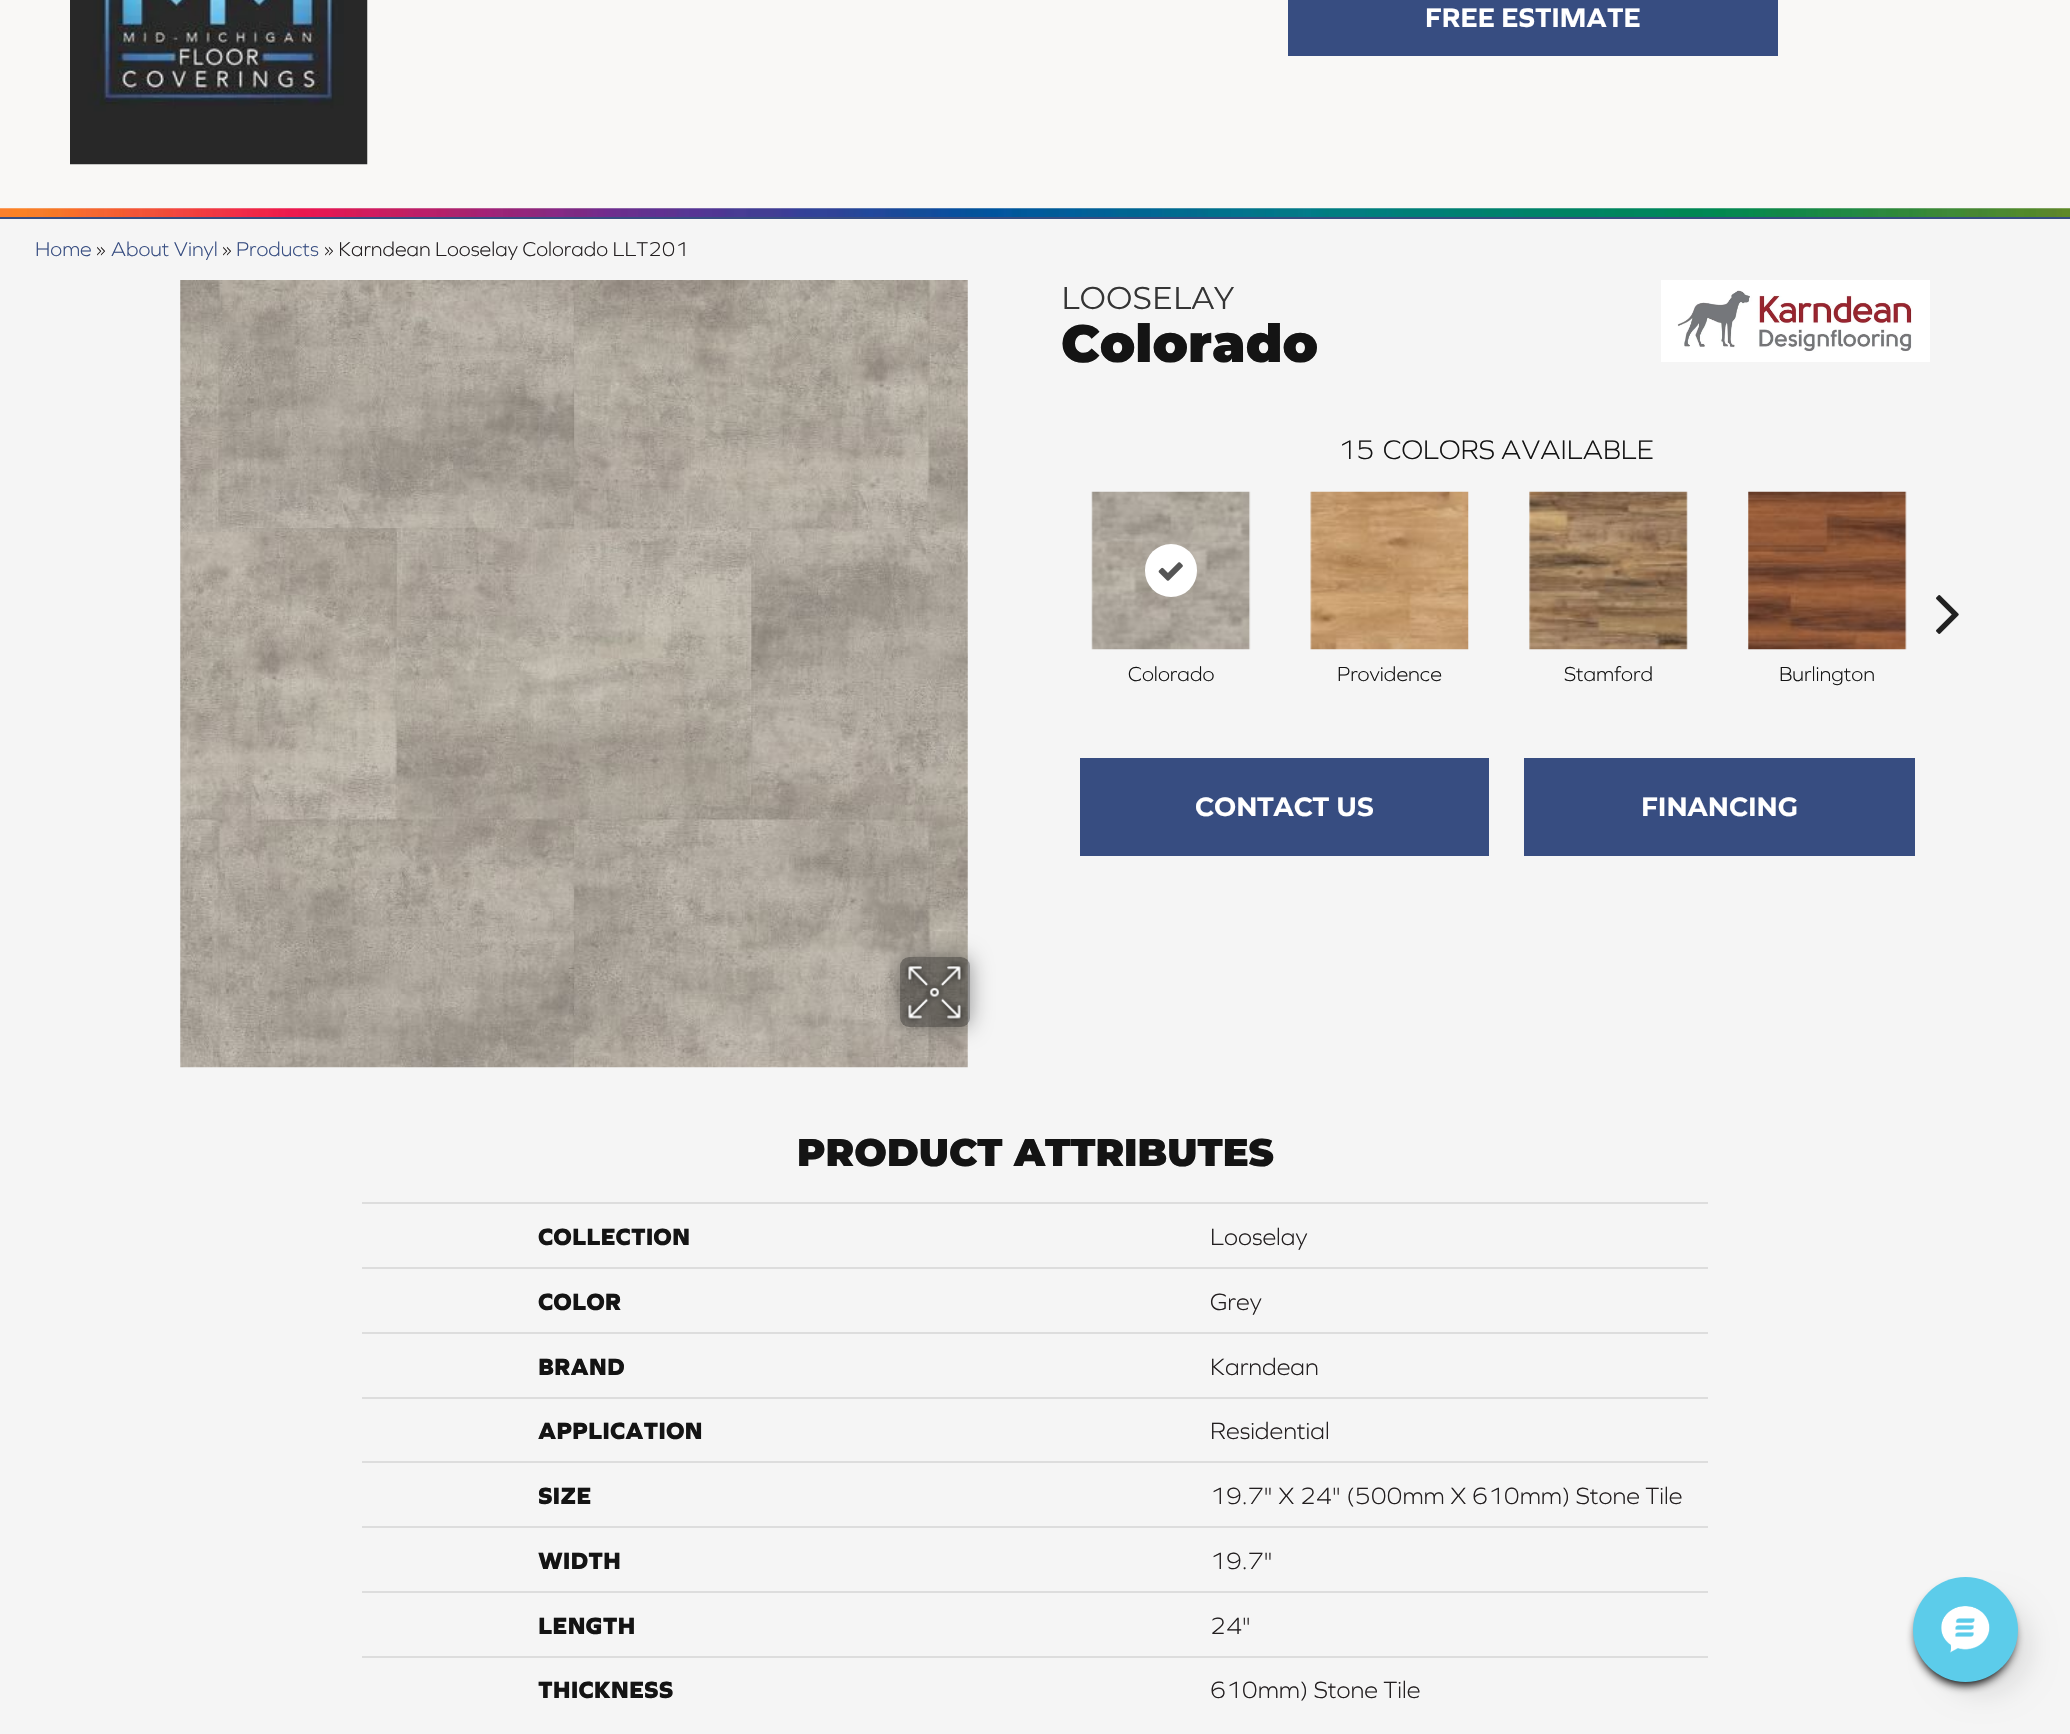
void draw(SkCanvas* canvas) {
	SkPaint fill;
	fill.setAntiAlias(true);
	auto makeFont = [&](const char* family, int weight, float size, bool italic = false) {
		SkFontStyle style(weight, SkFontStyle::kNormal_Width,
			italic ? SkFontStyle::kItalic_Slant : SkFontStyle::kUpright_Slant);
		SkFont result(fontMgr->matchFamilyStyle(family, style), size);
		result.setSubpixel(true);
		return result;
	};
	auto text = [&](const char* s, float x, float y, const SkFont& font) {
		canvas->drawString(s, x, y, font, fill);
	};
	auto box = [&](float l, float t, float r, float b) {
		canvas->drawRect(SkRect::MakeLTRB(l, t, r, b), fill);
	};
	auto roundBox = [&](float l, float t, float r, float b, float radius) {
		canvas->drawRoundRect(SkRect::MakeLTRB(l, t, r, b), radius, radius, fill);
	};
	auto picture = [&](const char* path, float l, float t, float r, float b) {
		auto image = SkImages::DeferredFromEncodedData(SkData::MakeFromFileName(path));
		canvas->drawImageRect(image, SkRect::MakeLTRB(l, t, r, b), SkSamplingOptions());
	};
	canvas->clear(0xFFF5F5F5);
	fill.setColor(0xFFF9F8F6);
	box(0, 0, 2070, 209);
	picture("image0.png", 0, 208, 2070, 217);
	picture("image1.png", 70, 0, 368, 165);
	fill.setColor(0xFF374D81);
	box(1288, 0, 1778, 56);
	box(0, 217, 2070, 219);
	picture("image2.png", 180, 280, 968, 1068);
	canvas->save();
	canvas->clipPath(SkPathBuilder(SkPathFillType::kEvenOdd).moveTo(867, 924).lineTo(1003, 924).lineTo(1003, 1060).lineTo(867, 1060).close().moveTo(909, 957).lineTo(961, 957).cubicTo(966, 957, 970, 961, 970, 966).lineTo(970, 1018).cubicTo(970, 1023, 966, 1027, 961, 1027).lineTo(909, 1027).cubicTo(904, 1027, 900, 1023, 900, 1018).lineTo(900, 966).cubicTo(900, 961, 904, 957, 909, 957).close().detach(), true);
	fill.setColor(0x69000000);
	fill.setMaskFilter(SkMaskFilter::MakeBlur(kNormal_SkBlurStyle, 10.5f));
	canvas->drawRoundRect(SkRect::MakeLTRB(900, 957, 970, 1027), 9, 9, fill);
	fill.setMaskFilter(nullptr);
	canvas->restore();
	fill.setColor(0x66000000);
	roundBox(900, 957, 970, 1027, 9);
	picture("image3.png", 902, 960, 966, 1024);
	picture("image4.png", 1661, 280, 1930, 362);
	picture("image5.png", 1936, 595, 1959, 634);
	picture("image6.png", 1091, 491, 1251, 650);
	fill.setColor(0xFFFFFFFF);
	roundBox(1145, 544, 1197, 597, 26);
	picture("image7.png", 1158, 562, 1183, 581);
	picture("image8.png", 1310, 491, 1469, 650);
	picture("image9.png", 1529, 491, 1688, 650);
	picture("image10.png", 1748, 491, 1907, 650);
	fill.setColor(0xFF374D81);
	box(1080, 758, 1489, 856);
	box(1524, 758, 1915, 856);
	fill.setColor(0xFFDDDDDD);
	box(362, 1202, 1708, 1204);
	box(362, 1267, 1708, 1269);
	box(362, 1332, 1708, 1334);
	box(362, 1397, 1708, 1399);
	box(362, 1461, 1708, 1463);
	box(362, 1526, 1708, 1528);
	box(362, 1591, 1708, 1593);
	box(362, 1656, 1708, 1658);
	fill.setColor(0xFF000000);
	fill.setMaskFilter(SkMaskFilter::MakeBlur(kNormal_SkBlurStyle, 5));
	canvas->drawRoundRect(SkRect::MakeLTRB(1916, 1587, 2014, 1685), 49, 49, fill);
	fill.setMaskFilter(nullptr);
	fill.setColor(0x1A000000);
	fill.setMaskFilter(SkMaskFilter::MakeBlur(kNormal_SkBlurStyle, 13));
	canvas->drawRoundRect(SkRect::MakeLTRB(1936, 1600, 2030, 1694), 47, 47, fill);
	fill.setMaskFilter(nullptr);
	fill.setColor(0xFF5CCCEA);
	canvas->drawCircle(1965.5f, 1629.5f, 52.5f, fill);
	picture("image11.png", 1941, 1606, 1990, 1653);
	auto font1 = makeFont("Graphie", 700, 28);
	fill.setColor(0xFFFFFFFF);
	text("FREE ESTIMATE", 1425, 27, font1);
	auto font2 = makeFont("Graphie", 300, 20.8f);
	fill.setColor(0xFF374D81);
	text("Home", 35, 256, font2);
	fill.setColor(0xFF231F20);
	text("»", 96, 256, font2);
	fill.setColor(0xFF374D81);
	text("About Vinyl", 111, 256, font2);
	fill.setColor(0xFF231F20);
	text("»", 222, 256, font2);
	fill.setColor(0xFF374D81);
	text("Products", 236, 256, font2);
	fill.setColor(0xFF231F20);
	text("» Karndean Looselay Colorado LLT201", 324, 256, font2);
	auto font3 = makeFont("Montserrat", 400, 31.5f);
	fill.setColor(0xFF353535);
	text("LOOSELAY", 1061, 309, font3);
	auto font4 = makeFont("Montserrat", 900, 52.5f);
	fill.setColor(0xFF141414);
	text("Colorado", 1061, 362, font4);
	auto font5 = makeFont("Graphie", 300, 28);
	text("15", 1338, 459, font5);
	text("COLORS AVAILABLE", 1383, 459, font5);
	auto font6 = makeFont("Graphie", 300, 21);
	text("Colorado", 1128, 681, font6);
	text("Providence", 1337, 681, font6);
	text("Stamford", 1564, 681, font6);
	text("Burlington", 1779, 681, font6);
	auto font7 = makeFont("Montserrat", 700, 26.25f);
	fill.setColor(0xFFFFFFFF);
	text("CONTACT US", 1195, 816, font7);
	text("FINANCING", 1641, 816, font7);
	auto font8 = makeFont("Montserrat", 900, 38.5f);
	fill.setColor(0xFF141414);
	text("PRODUCT ATTRIBUTES", 797, 1166, font8);
	auto font9 = makeFont("Graphie", 800, 24.5f);
	text("COLLECTION", 538, 1245, font9);
	auto font10 = makeFont("Graphie", 300, 24.5f);
	fill.setColor(0xFF231F20);
	text("Looselay", 1210, 1245, font10);
	fill.setColor(0xFF141414);
	text("COLOR", 538, 1310, font9);
	fill.setColor(0xFF231F20);
	text("Grey", 1210, 1310, font10);
	fill.setColor(0xFF141414);
	text("BRAND", 538, 1375, font9);
	fill.setColor(0xFF231F20);
	text("Karndean", 1210, 1375, font10);
	fill.setColor(0xFF141414);
	text("APPLICATION", 538, 1439, font9);
	fill.setColor(0xFF231F20);
	text("Residential", 1210, 1439, font10);
	fill.setColor(0xFF141414);
	text("SIZE", 538, 1504, font9);
	fill.setColor(0xFF231F20);
	text("19.7\" X 24\" (500mm X 610mm) Stone Tile", 1210, 1504, font10);
	fill.setColor(0xFF141414);
	text("WIDTH", 538, 1569, font9);
	fill.setColor(0xFF231F20);
	text("19.7\"", 1210, 1569, font10);
	fill.setColor(0xFF141414);
	text("LENGTH", 538, 1634, font9);
	fill.setColor(0xFF231F20);
	text("24\"", 1210, 1634, font10);
	fill.setColor(0xFF141414);
	text("THICKNESS", 538, 1698, font9);
	fill.setColor(0xFF231F20);
	text("610mm) Stone Tile", 1210, 1698, font10);
}
